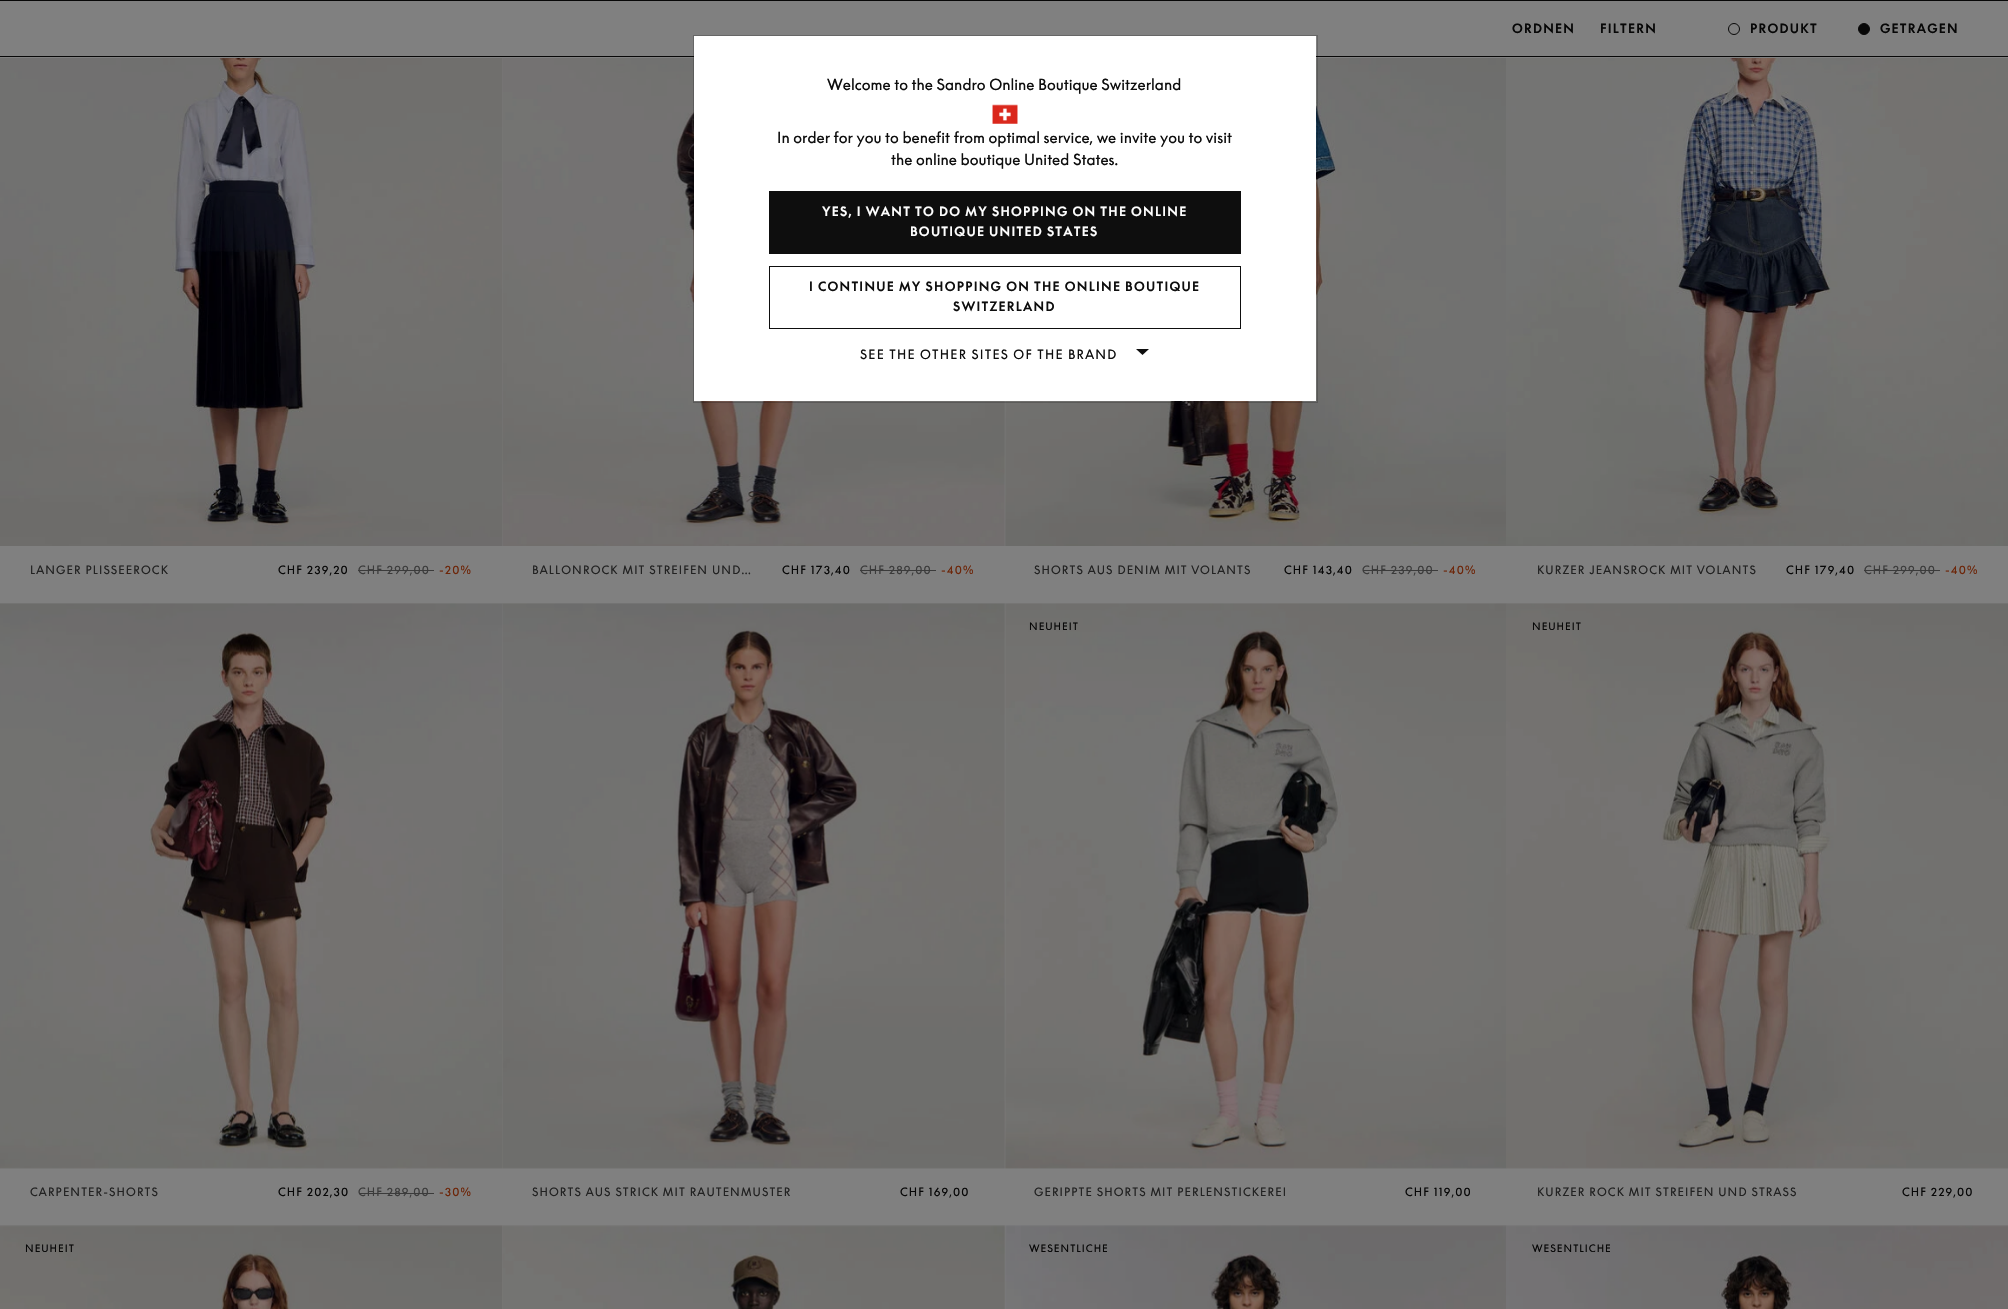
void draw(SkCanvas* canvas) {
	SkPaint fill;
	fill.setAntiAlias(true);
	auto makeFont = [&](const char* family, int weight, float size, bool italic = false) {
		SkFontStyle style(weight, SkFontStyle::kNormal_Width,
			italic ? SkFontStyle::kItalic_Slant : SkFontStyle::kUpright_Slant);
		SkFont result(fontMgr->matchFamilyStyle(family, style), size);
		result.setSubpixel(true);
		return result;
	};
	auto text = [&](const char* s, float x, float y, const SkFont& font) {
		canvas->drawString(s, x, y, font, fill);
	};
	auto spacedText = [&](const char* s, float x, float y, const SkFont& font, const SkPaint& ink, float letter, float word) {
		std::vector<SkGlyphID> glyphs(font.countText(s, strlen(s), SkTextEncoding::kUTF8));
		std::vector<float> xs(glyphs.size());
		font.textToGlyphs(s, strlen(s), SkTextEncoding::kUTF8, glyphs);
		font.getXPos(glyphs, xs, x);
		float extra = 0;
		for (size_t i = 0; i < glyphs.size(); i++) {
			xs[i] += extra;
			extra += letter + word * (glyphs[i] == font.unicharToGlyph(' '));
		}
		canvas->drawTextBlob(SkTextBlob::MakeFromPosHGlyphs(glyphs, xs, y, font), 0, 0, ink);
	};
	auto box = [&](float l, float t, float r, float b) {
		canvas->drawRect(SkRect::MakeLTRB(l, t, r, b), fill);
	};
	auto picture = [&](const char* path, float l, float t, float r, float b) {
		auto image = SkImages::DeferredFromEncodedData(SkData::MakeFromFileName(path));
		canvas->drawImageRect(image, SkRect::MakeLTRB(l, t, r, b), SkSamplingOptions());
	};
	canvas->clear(0xFF808080);
	fill.setColor(0xFF070707);
	box(0, 0, 2008, 1);
	box(0, 56, 2008, 57);
	fill.setStyle(SkPaint::kStroke_Style);
	fill.setStrokeWidth(1);
	canvas->drawCircle(1734, 29, 5.5f, fill);
	fill.setStyle(SkPaint::kFill_Style);
	canvas->drawCircle(1864, 29, 5.5f, fill);
	fill.setStyle(SkPaint::kStroke_Style);
	canvas->drawCircle(1864, 29, 5.5f, fill);
	picture("image0.png", 0, 58, 503, 546);
	fill.setStyle(SkPaint::kFill_Style);
	fill.setColor(0xFF3B3B3B);
	box(358, 570, 434, 571);
	picture("image1.png", 502, 58, 1005, 546);
	box(860, 570, 936, 571);
	picture("image2.png", 1005, 58, 1506, 546);
	box(1363, 570, 1438, 571);
	picture("image3.png", 1506, 58, 2008, 546);
	box(1864, 570, 1940, 571);
	picture("image4.png", 0, 603, 503, 1169);
	box(359, 1193, 434, 1194);
	picture("image5.png", 502, 603, 1005, 1169);
	picture("image6.png", 1005, 603, 1507, 1169);
	fill.setColor(0xFF808080);
	box(1506, 1167, 1507, 1168);
	picture("image7.png", 1506, 603, 2008, 1169);
	picture("image8.png", 0, 1225, 503, 1309);
	picture("image9.png", 502, 1225, 1005, 1309);
	picture("image10.png", 1005, 1225, 1507, 1309);
	picture("image11.png", 1506, 1225, 2008, 1309);
	fill.setColor(0xFFFFFFFF);
	box(694, 36, 1316, 401);
	fill.setStyle(SkPaint::kStroke_Style);
	fill.setColor(0x33000000);
	canvas->drawRect(SkRect::MakeLTRB(693.5f, 35.5f, 1317.5f, 402.5f), fill);
	picture("image12.png", 992, 104, 1018, 124);
	fill.setStyle(SkPaint::kFill_Style);
	fill.setColor(0xFF0E0E0E);
	box(769, 191, 1241, 254);
	fill.setStyle(SkPaint::kStroke_Style);
	canvas->drawRect(SkRect::MakeLTRB(769.5f, 266.5f, 1240.5f, 328.5f), fill);
	fill.setStyle(SkPaint::kFill_Style);
	canvas->drawPath(SkPathBuilder().moveTo(1136, 349).lineTo(1149, 349).lineTo(1142.5f, 355).close().detach(), fill);
	auto font1 = makeFont("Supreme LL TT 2", 700, 12.5f);
	fill.setColor(0xFF070707);
	spacedText("ORDNEN", 1512, 33, font1, fill, 1.25f, 0);
	spacedText("FILTERN", 1600, 33, font1, fill, 1.25f, 0);
	auto font2 = makeFont("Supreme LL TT", 700, 12.5f);
	spacedText("PRODUKT", 1750, 33, font2, fill, 1.25f, 0);
	spacedText("GETRAGEN", 1880, 33, font2, fill, 1.25f, 0);
	auto font3 = makeFont("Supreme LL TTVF", 400, 11.25f);
	fill.setColor(0xFF222222);
	spacedText("LANGER PLISSEEROCK", 30, 574, font3, fill, 1.1f, 0);
	fill.setColor(0xFF070707);
	spacedText("CHF 239,20", 278, 574, font3, fill, 1.1f, 0);
	fill.setColor(0xFF3B3B3B);
	spacedText("CHF 299,00", 358, 574, font3, fill, 1.1f, 0);
	fill.setColor(0xFF6D2508);
	spacedText("-20%", 439, 574, font3, fill, 1.1f, 0);
	fill.setColor(0xFF222222);
	spacedText("BALLONROCK MIT STREIFEN UND…", 532, 574, font3, fill, 1.1f, 0);
	fill.setColor(0xFF070707);
	spacedText("CHF 173,40", 782, 574, font3, fill, 1.1f, 0);
	fill.setColor(0xFF3B3B3B);
	spacedText("CHF 289,00", 860, 574, font3, fill, 1.1f, 0);
	fill.setColor(0xFF6D2508);
	spacedText("-40%", 941, 574, font3, fill, 1.1f, 0);
	fill.setColor(0xFF222222);
	spacedText("SHORTS AUS DENIM MIT VOLANTS", 1034, 574, font3, fill, 1.1f, 0);
	fill.setColor(0xFF070707);
	spacedText("CHF 143,40", 1284, 574, font3, fill, 1.1f, 0);
	fill.setColor(0xFF3B3B3B);
	spacedText("CHF 239,00", 1362, 574, font3, fill, 1.1f, 0);
	fill.setColor(0xFF6D2508);
	spacedText("-40%", 1443, 574, font3, fill, 1.1f, 0);
	fill.setColor(0xFF222222);
	spacedText("KURZER JEANSROCK MIT VOLANTS", 1537, 574, font3, fill, 1.1f, 0);
	fill.setColor(0xFF070707);
	spacedText("CHF 179,40", 1786, 574, font3, fill, 1.1f, 0);
	fill.setColor(0xFF3B3B3B);
	spacedText("CHF 299,00", 1864, 574, font3, fill, 1.1f, 0);
	fill.setColor(0xFF6D2508);
	spacedText("-40%", 1945, 574, font3, fill, 1.1f, 0);
	fill.setColor(0xFF222222);
	spacedText("CARPENTER-SHORTS", 30, 1196, font3, fill, 1.1f, 0);
	fill.setColor(0xFF070707);
	spacedText("CHF 202,30", 278, 1196, font3, fill, 1.1f, 0);
	fill.setColor(0xFF3B3B3B);
	spacedText("CHF 289,00", 358, 1196, font3, fill, 1.1f, 0);
	fill.setColor(0xFF6D2508);
	spacedText("-30%", 439, 1196, font3, fill, 1.1f, 0);
	fill.setColor(0xFF222222);
	spacedText("SHORTS AUS STRICK MIT RAUTENMUSTER", 532, 1196, font3, fill, 1.1f, 0);
	fill.setColor(0xFF070707);
	spacedText("CHF 169,00", 900, 1196, font3, fill, 1.1f, 0);
	auto font4 = makeFont("Supreme LL TTVF", 400, 10);
	spacedText("NEUHEIT", 1029, 630, font4, fill, 1, 0);
	fill.setColor(0xFF222222);
	spacedText("GERIPPTE SHORTS MIT PERLENSTICKEREI", 1034, 1196, font3, fill, 1.1f, 0);
	fill.setColor(0xFF070707);
	spacedText("CHF 119,00", 1405, 1196, font3, fill, 1.1f, 0);
	spacedText("NEUHEIT", 1532, 630, font4, fill, 1, 0);
	fill.setColor(0xFF222222);
	spacedText("KURZER ROCK MIT STREIFEN UND STRASS", 1537, 1196, font3, fill, 1.1f, 0);
	fill.setColor(0xFF070707);
	spacedText("CHF 229,00", 1902, 1196, font3, fill, 1.1f, 0);
	spacedText("NEUHEIT", 25, 1252, font4, fill, 1, 0);
	spacedText("WESENTLICHE", 1029, 1252, font4, fill, 1, 0);
	spacedText("WESENTLICHE", 1532, 1252, font4, fill, 1, 0);
	auto font5 = makeFont("Supreme LL TTVF", 400, 15);
	fill.setColor(0xFF0E0E0E);
	text("Welcome to the Sandro Online Boutique Switzerland", 827, 90, font5);
	text("In order for you to benefit from optimal service, we invite you to visit", 777, 143, font5);
	text("the online boutique United States.", 891, 165, font5);
	fill.setColor(0xFFFFFFFF);
	spacedText("YES, I WANT TO DO MY SHOPPING ON THE ONLINE", 822, 216, font1, fill, 1.25f, 0);
	spacedText("BOUTIQUE UNITED STATES", 910, 236, font1, fill, 1.25f, 0);
	fill.setColor(0xFF0E0E0E);
	spacedText("I CONTINUE MY SHOPPING ON THE ONLINE BOUTIQUE", 809, 291, font1, fill, 1.25f, 0);
	spacedText("SWITZERLAND", 953, 311, font1, fill, 1.25f, 0);
	auto font6 = makeFont("Supreme LL TTVF", 400, 12.5f);
	spacedText("SEE THE OTHER SITES OF THE BRAND", 860, 359, font6, fill, 1.25f, 0);
}
